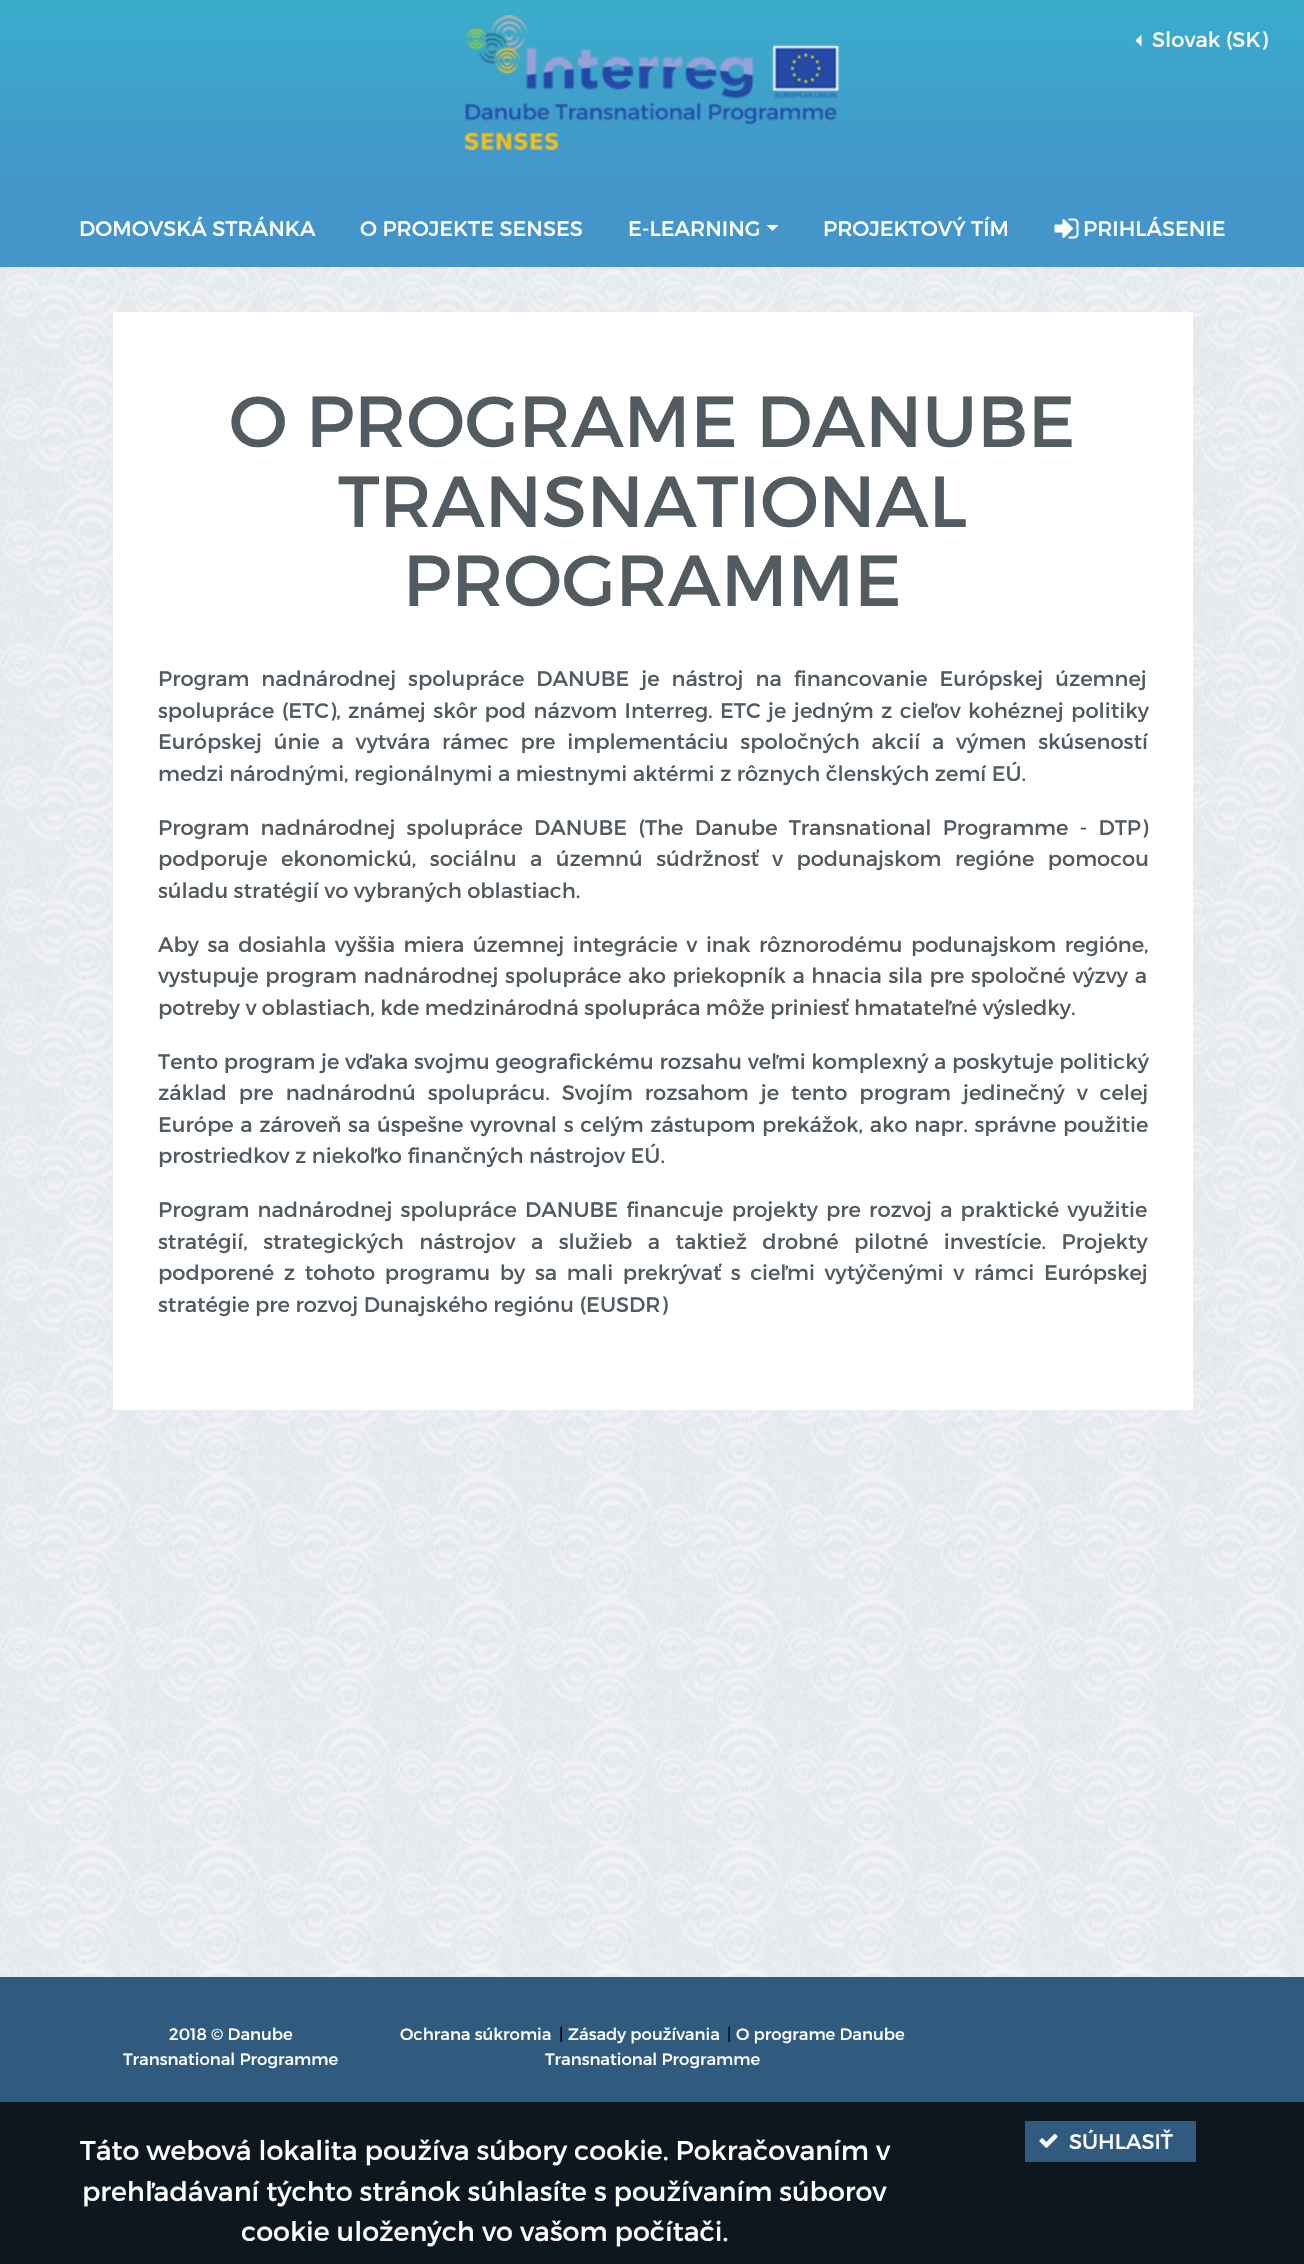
void draw(SkCanvas* canvas) {
	SkPaint fill;
	fill.setAntiAlias(true);
	auto makeFont = [&](const char* family, int weight, float size, bool italic = false) {
		SkFontStyle style(weight, SkFontStyle::kNormal_Width,
			italic ? SkFontStyle::kItalic_Slant : SkFontStyle::kUpright_Slant);
		SkFont result(fontMgr->matchFamilyStyle(family, style), size);
		result.setSubpixel(true);
		return result;
	};
	auto text = [&](const char* s, float x, float y, const SkFont& font) {
		canvas->drawString(s, x, y, font, fill);
	};
	auto spacedText = [&](const char* s, float x, float y, const SkFont& font, const SkPaint& ink, float letter, float word) {
		std::vector<SkGlyphID> glyphs(font.countText(s, strlen(s), SkTextEncoding::kUTF8));
		std::vector<float> xs(glyphs.size());
		font.textToGlyphs(s, strlen(s), SkTextEncoding::kUTF8, glyphs);
		font.getXPos(glyphs, xs, x);
		float extra = 0;
		for (size_t i = 0; i < glyphs.size(); i++) {
			xs[i] += extra;
			extra += letter + word * (glyphs[i] == font.unicharToGlyph(' '));
		}
		canvas->drawTextBlob(SkTextBlob::MakeFromPosHGlyphs(glyphs, xs, y, font), 0, 0, ink);
	};
	auto box = [&](float l, float t, float r, float b) {
		canvas->drawRect(SkRect::MakeLTRB(l, t, r, b), fill);
	};
	auto picture = [&](const char* path, float l, float t, float r, float b) {
		auto image = SkImages::DeferredFromEncodedData(SkData::MakeFromFileName(path));
		canvas->drawImageRect(image, SkRect::MakeLTRB(l, t, r, b), SkSamplingOptions());
	};
	canvas->clear(0xFFFFFFFF);
	picture("image0.png", 0, 267, 1304, 1977);
	{
		const SkColor colors[] = {0xFF39ADCC, 0xFF4495C9};
		const float stops[] = {0, 1};
		const SkPoint ends[] = {{653, 0}, {653, 188}};
		fill.setShader(SkGradientShader::MakeLinear(ends, colors, stops, 2, SkTileMode::kClamp));
		fill.setAlpha(255);
	}
	box(0, 0, 1304, 188);
	picture("image1.png", 465, 15, 839, 150);
	fill.setShader(nullptr);
	fill.setColor(0xFF4495C9);
	box(0, 188, 1304, 267);
	fill.setColor(0xFFF8F9FA);
	canvas->drawPath(SkPathBuilder().moveTo(1141.5f, 34.5f).lineTo(1141.5f, 46.5f).lineTo(1135.5f, 40.5f).close().detach(), fill);
	fill.setColor(0xFFFFFFFF);
	canvas->drawPath(SkPathBuilder().moveTo(766.5f, 225).lineTo(778.5f, 225).lineTo(772.5f, 231).close().detach(), fill);
	picture("image2.png", 1054, 218, 1079, 239);
	box(113, 312, 1193, 1410);
	fill.setColor(0xFF305B7F);
	box(0, 1977, 1304, 2264);
	fill.setColor(0xBF000000);
	box(0, 2102, 1304, 2264);
	fill.setColor(0xFF305B7F);
	box(1025, 2121, 1196, 2162);
	picture("image3.png", 1039, 2133, 1058, 2148);
	auto font1 = makeFont("Montserrat", 400, 21);
	fill.setColor(0xFFF8F9FA);
	text("Slovak (SK)", 1152, 47, font1);
	fill.setColor(0xFFFFFFFF);
	text("DOMOVSKÁ STRÁNKA", 79, 236, font1);
	text("O PROJEKTE SENSES", 360, 236, font1);
	text("E-LEARNING", 628, 236, font1);
	text("PROJEKTOVÝ TÍM", 823, 236, font1);
	text("PRIHLÁSENIE", 1083, 236, font1);
	auto font2 = makeFont("Montserrat", 400, 72);
	fill.setColor(0xFF525C60);
	text("O PROGRAME DANUBE", 229, 447, font2);
	text("TRANSNATIONAL", 338, 527, font2);
	text("PROGRAMME", 403, 606, font2);
	spacedText("Program nadnárodnej spolupráce DANUBE je nástroj na financovanie Európskej územnej", 158, 686, font1, fill, 0, 6.5f);
	spacedText("spolupráce (ETC), známej skôr pod názvom Interreg. ETC je jedným z cieľov kohéznej politiky", 158, 718, font1, fill, 0, 2);
	spacedText("Európskej únie a vytvára rámec pre implementáciu spoločných akcií a výmen skúseností", 158, 749, font1, fill, 0, 6.4f);
	text("medzi národnými, regionálnymi a miestnymi aktérmi z rôznych členských zemí EÚ.", 158, 781, font1);
	spacedText("Program nadnárodnej spolupráce DANUBE (The Danube Transnational Programme - DTP)", 158, 835, font1, fill, 0, 5.75f);
	spacedText("podporuje ekonomickú, sociálnu a územnú súdržnosť v podunajskom regióne pomocou", 158, 866, font1, fill, 0, 8);
	text("súladu stratégií vo vybraných oblastiach.", 158, 898, font1);
	spacedText("Aby sa dosiahla vyššia miera územnej integrácie v inak rôznorodému podunajskom regióne,", 158, 952, font1, fill, 0, 3.1f);
	spacedText("vystupuje program nadnárodnej spolupráce ako priekopník a hnacia sila pre spoločné výzvy a", 158, 983, font1, fill, 0, 1.25f);
	text("potreby v oblastiach, kde medzinárodná spolupráca môže priniesť hmatateľné výsledky.", 158, 1015, font1);
	spacedText("Tento program je vďaka svojmu geografickému rozsahu veľmi komplexný a poskytuje politický", 158, 1069, font1, fill, 0, 0.25f);
	spacedText("základ pre nadnárodnú spoluprácu. Svojím rozsahom je tento program jedinečný v celej", 158, 1100, font1, fill, 0, 6.5f);
	spacedText("Európe a zároveň sa úspešne vyrovnal s celým zástupom prekážok, ako napr. správne použitie", 158, 1132, font1, fill, 0, 1.25f);
	text("prostriedkov z niekoľko finančných nástrojov EÚ.", 158, 1163, font1);
	spacedText("Program nadnárodnej spolupráce DANUBE financuje projekty pre rozvoj a praktické využitie", 158, 1217, font1, fill, 0, 2.75f);
	spacedText("stratégií, strategických nástrojov a služieb a taktiež drobné pilotné investície. Projekty", 158, 1249, font1, fill, 0, 10);
	spacedText("podporené z tohoto programu by sa mali prekrývať s cieľmi vytýčenými v rámci Európskej", 158, 1280, font1, fill, 0, 4.25f);
	text("stratégie pre rozvoj Dunajského regiónu (EUSDR)", 158, 1312, font1);
	auto font3 = makeFont("Montserrat", 400, 16.5f);
	fill.setColor(0xFFFFFFFF);
	text("2018 © Danube", 169, 2040, font3);
	text("Transnational Programme", 123, 2065, font3);
	text("Ochrana súkromia", 400, 2040, font3);
	fill.setColor(0xFF000000);
	text("|", 559, 2040, font3);
	fill.setColor(0xFFFFFFFF);
	text("Zásady používania", 568, 2040, font3);
	fill.setColor(0xFF000000);
	text("|", 727, 2040, font3);
	fill.setColor(0xFFFFFFFF);
	text("O programe Danube", 736, 2040, font3);
	text("Transnational Programme", 545, 2065, font3);
	auto font4 = makeFont("Montserrat", 400, 27);
	text("Táto webová lokalita používa súbory cookie. Pokračovaním v", 80, 2160, font4);
	text("prehľadávaní týchto stránok súhlasíte s používaním súborov", 82, 2201, font4);
	text("cookie uložených vo vašom počítači.", 241, 2241, font4);
	text("SÚHLASIŤ", 1069, 2149, font1);
}
